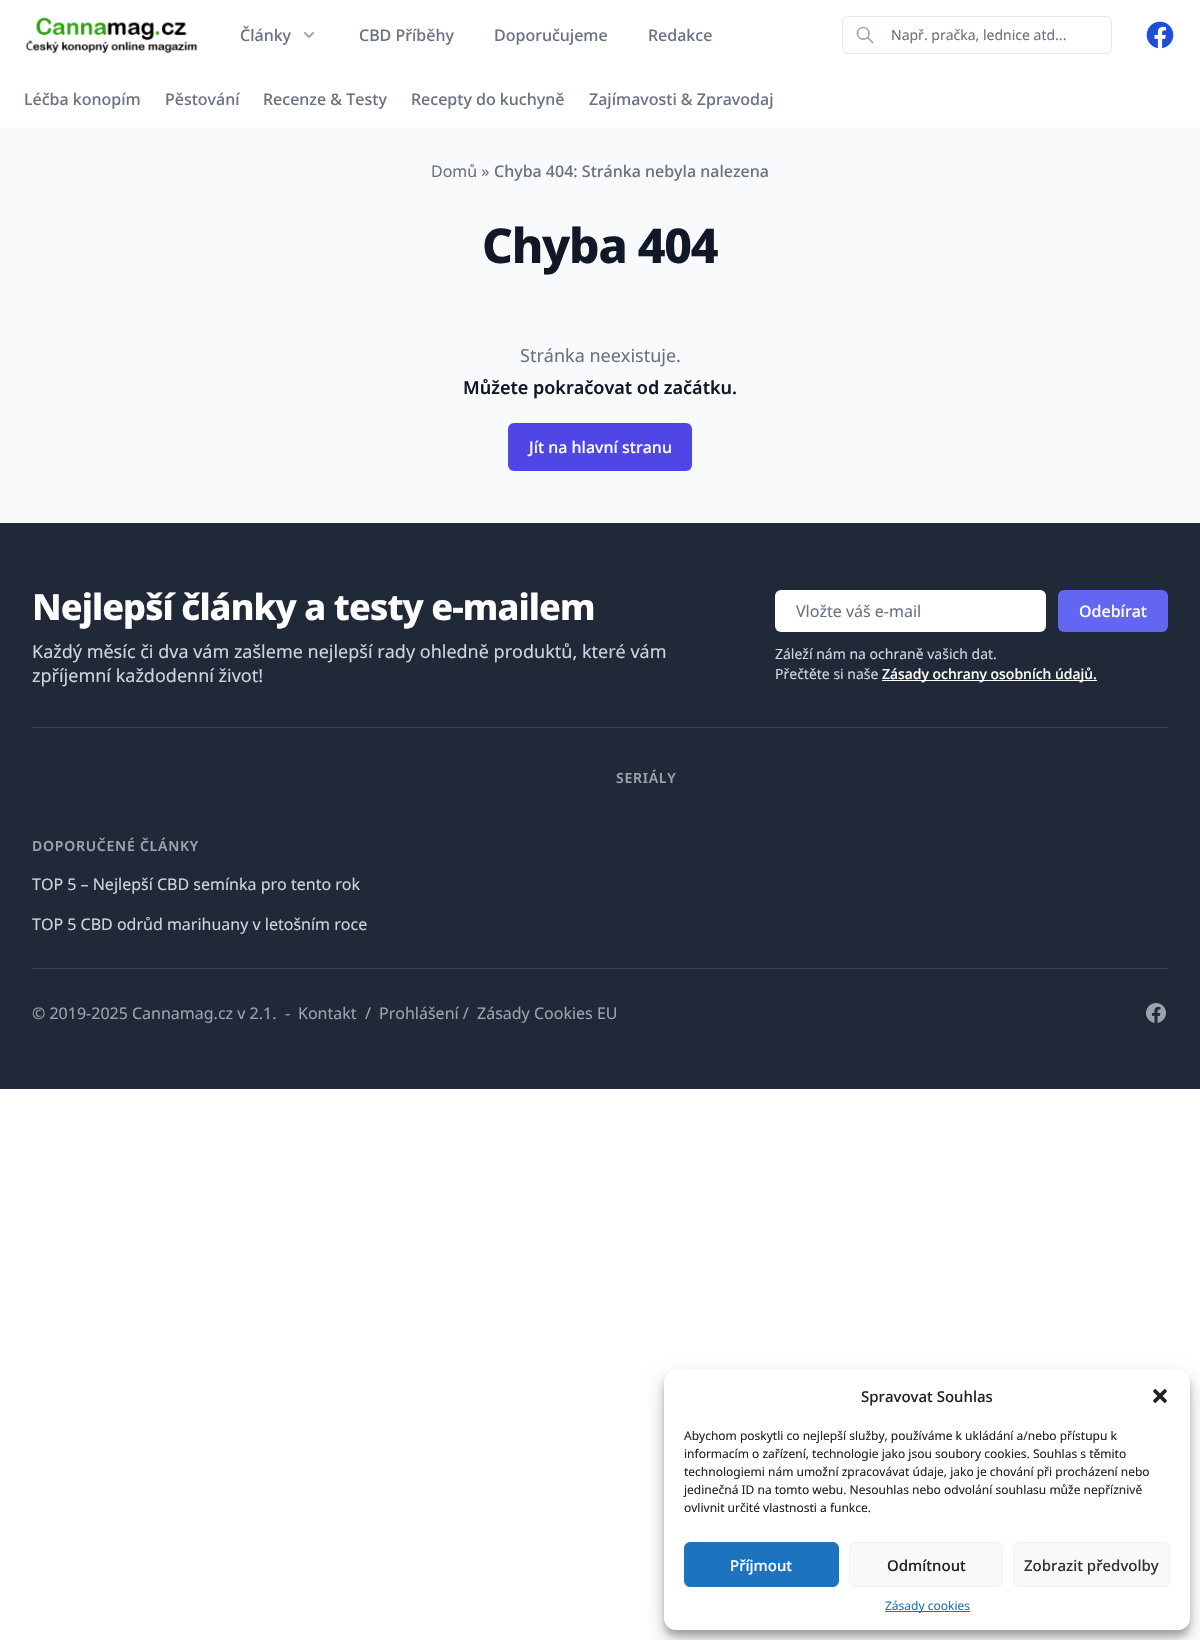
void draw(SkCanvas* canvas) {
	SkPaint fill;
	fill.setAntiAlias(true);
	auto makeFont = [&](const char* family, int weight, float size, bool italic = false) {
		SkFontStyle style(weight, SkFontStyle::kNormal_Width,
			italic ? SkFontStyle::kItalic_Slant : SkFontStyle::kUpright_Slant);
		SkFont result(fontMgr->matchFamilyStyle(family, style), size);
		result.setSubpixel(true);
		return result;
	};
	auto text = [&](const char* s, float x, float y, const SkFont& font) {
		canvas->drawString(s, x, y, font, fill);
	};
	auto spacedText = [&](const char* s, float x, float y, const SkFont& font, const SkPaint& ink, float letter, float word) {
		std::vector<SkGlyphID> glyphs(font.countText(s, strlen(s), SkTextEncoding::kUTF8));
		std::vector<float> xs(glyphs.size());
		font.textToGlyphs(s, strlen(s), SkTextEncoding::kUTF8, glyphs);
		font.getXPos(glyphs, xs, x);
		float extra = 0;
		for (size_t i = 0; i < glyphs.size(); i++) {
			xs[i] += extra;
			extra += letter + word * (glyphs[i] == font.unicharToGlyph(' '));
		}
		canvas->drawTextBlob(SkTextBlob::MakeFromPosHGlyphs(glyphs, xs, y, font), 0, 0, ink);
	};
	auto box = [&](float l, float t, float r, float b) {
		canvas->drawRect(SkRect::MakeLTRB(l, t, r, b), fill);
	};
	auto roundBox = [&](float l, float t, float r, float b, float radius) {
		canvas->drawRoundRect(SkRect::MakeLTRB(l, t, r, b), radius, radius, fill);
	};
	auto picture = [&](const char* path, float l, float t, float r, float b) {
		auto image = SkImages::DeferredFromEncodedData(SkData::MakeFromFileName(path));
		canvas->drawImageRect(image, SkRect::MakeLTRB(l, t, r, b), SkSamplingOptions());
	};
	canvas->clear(0xFFFFFFFF);
	picture("image0.png", 25, 17, 198, 54);
	picture("image1.png", 304, 32, 314, 38);
	fill.setStyle(SkPaint::kStroke_Style);
	fill.setStrokeWidth(1);
	fill.setColor(0xFFE5E7EB);
	canvas->drawRoundRect(SkRect::MakeLTRB(842.5f, 16.5f, 1111.5f, 53.5f), 5.5f, 5.5f, fill);
	fill.setStrokeWidth(1.7f);
	fill.setStrokeCap(SkPaint::kRound_Cap);
	fill.setStrokeJoin(SkPaint::kRound_Join);
	fill.setColor(0xFF9CA3AF);
	canvas->drawPath(SkPathBuilder().moveTo(872.5f, 42.5f).lineTo(867.5f, 37.5f).moveTo(869, 33.5f).cubicTo(869, 41, 857.5f, 41, 857.5f, 33.5f).cubicTo(857.5f, 25.5f, 869, 25.5f, 869, 33.5f).close().detach(), fill);
	picture("image2.png", 1146, 21, 1174, 49);
	fill.setStyle(SkPaint::kFill_Style);
	fill.setColor(0xFFF9FAFB);
	box(0, 127, 1200, 523);
	fill.setColor(0xFF4F46E5);
	roundBox(508, 423, 692, 471, 6);
	fill.setColor(0xFF1F2937);
	box(0, 523, 1200, 1089);
	fill.setColor(0xFFFFFFFF);
	roundBox(775, 590, 1046, 632, 6);
	fill.setColor(0xFF6366F1);
	roundBox(1058, 590, 1168, 632, 6);
	fill.setColor(0xFFFFFFFF);
	box(882, 680, 1097, 681);
	fill.setColor(0xFF374151);
	box(32, 727, 1168, 728);
	box(32, 968, 1168, 969);
	picture("image3.png", 1146, 1003, 1166, 1023);
	fill.setColor(0x3B000000);
	fill.setMaskFilter(SkMaskFilter::MakeBlur(kNormal_SkBlurStyle, 3));
	canvas->drawRoundRect(SkRect::MakeLTRB(664, 1376, 1190, 1636), 12, 12, fill);
	fill.setMaskFilter(nullptr);
	fill.setColor(0x30000000);
	fill.setMaskFilter(SkMaskFilter::MakeBlur(kNormal_SkBlurStyle, 10));
	canvas->drawRoundRect(SkRect::MakeLTRB(664, 1380, 1190, 1640), 12, 12, fill);
	fill.setMaskFilter(nullptr);
	fill.setColor(0xFFFFFFFF);
	roundBox(664, 1370, 1190, 1630, 12);
	picture("image4.png", 1153, 1389, 1167, 1403);
	fill.setColor(0xFF1E73BE);
	canvas->drawRoundRect(SkRect::MakeLTRB(684.5f, 1542.5f, 838.5f, 1586.5f), 5.5f, 5.5f, fill);
	fill.setStyle(SkPaint::kStroke_Style);
	fill.setStrokeWidth(1);
	fill.setStrokeCap(SkPaint::kButt_Cap);
	fill.setStrokeJoin(SkPaint::kMiter_Join);
	canvas->drawRoundRect(SkRect::MakeLTRB(684.5f, 1542.5f, 838.5f, 1586.5f), 5.5f, 5.5f, fill);
	fill.setStyle(SkPaint::kFill_Style);
	fill.setColor(0xFFF9F9F9);
	canvas->drawRoundRect(SkRect::MakeLTRB(849.5f, 1542.5f, 1002.5f, 1586.5f), 5.5f, 5.5f, fill);
	fill.setStyle(SkPaint::kStroke_Style);
	fill.setColor(0xFFF2F2F2);
	canvas->drawRoundRect(SkRect::MakeLTRB(849.5f, 1542.5f, 1002.5f, 1586.5f), 5.5f, 5.5f, fill);
	fill.setStyle(SkPaint::kFill_Style);
	fill.setColor(0xFFF9F9F9);
	canvas->drawRoundRect(SkRect::MakeLTRB(1013.5f, 1542.5f, 1169.5f, 1586.5f), 5.5f, 5.5f, fill);
	fill.setStyle(SkPaint::kStroke_Style);
	fill.setColor(0xFFF2F2F2);
	canvas->drawRoundRect(SkRect::MakeLTRB(1013.5f, 1542.5f, 1169.5f, 1586.5f), 5.5f, 5.5f, fill);
	fill.setStyle(SkPaint::kFill_Style);
	fill.setColor(0xFF1E73BE);
	box(885, 1611, 970, 1612);
	auto font1 = makeFont("Noto Sans", 500, 16);
	fill.setColor(0xFF6B7280);
	text("Články", 240, 41, font1);
	text("CBD Příběhy", 359, 41, font1);
	text("Doporučujeme", 494, 41, font1);
	text("Redakce", 648, 41, font1);
	auto font2 = makeFont("Noto Sans", 400, 14);
	text("Např. pračka, lednice atd...", 891, 40, font2);
	text("Léčba konopím", 24, 105, font1);
	text("Pěstování", 165, 105, font1);
	text("Recenze & Testy", 263, 105, font1);
	text("Recepty do kuchyně", 411, 105, font1);
	text("Zajímavosti & Zpravodaj", 589, 105, font1);
	auto font3 = makeFont("Noto Sans", 400, 16);
	text("Domů »", 431, 177, font3);
	text("Chyba 404: Stránka nebyla nalezena", 494, 177, font1);
	auto font4 = makeFont("Noto Sans", 800, 48);
	fill.setColor(0xFF111827);
	spacedText("Chyba 404", 482, 263, font4, fill, -1.25f, 0);
	auto font5 = makeFont("Noto Sans", 400, 18);
	fill.setColor(0xFF6B7280);
	text("Stránka neexistuje.", 520, 362, font5);
	auto font6 = makeFont("Noto Sans", 600, 18);
	fill.setColor(0xFF111827);
	text("Můžete pokračovat od začátku.", 463, 394, font6);
	fill.setColor(0xFFFFFFFF);
	text("Jít na hlavní stranu", 529, 453, font1);
	auto font7 = makeFont("Noto Sans", 800, 36);
	spacedText("Nejlepší články a testy e-mailem", 32, 620, font7, fill, -0.9f, 0);
	fill.setColor(0xFFD1D5DB);
	text("Každý měsíc či dva vám zašleme nejlepší rady ohledně produktů, které vám", 32, 658, font5);
	text("zpříjemní každodenní život!", 32, 682, font5);
	fill.setColor(0xFF6B7280);
	text("Vložte váš e-mail", 796, 617, font3);
	fill.setColor(0xFFFFFFFF);
	text("Odebírat", 1079, 617, font1);
	fill.setColor(0xFFD1D5DB);
	text("Záleží nám na ochraně vašich dat.", 775, 659, font2);
	text("Přečtěte si naše", 775, 679, font2);
	auto font8 = makeFont("Noto Sans", 500, 14);
	fill.setColor(0xFFFFFFFF);
	text("Zásady ochrany osobních údajů.", 882, 679, font8);
	auto font9 = makeFont("Noto Sans", 600, 14);
	fill.setColor(0xFF9CA3AF);
	spacedText("SERIÁLY", 616, 783, font9, fill, 0.75f, 0);
	spacedText("DOPORUČENÉ ČLÁNKY", 32, 851, font9, fill, 0.75f, 0);
	fill.setColor(0xFFD1D5DB);
	text("TOP 5 – Nejlepší CBD semínka pro tento rok", 32, 890, font3);
	text("TOP 5 CBD odrůd marihuany v letošním roce", 32, 930, font3);
	fill.setColor(0xFF9CA3AF);
	text("© 2019-2025 Cannamag.cz v 2.1.", 32, 1019, font3);
	text("-", 285, 1019, font3);
	text("Kontakt", 298, 1019, font3);
	text("/", 365, 1019, font3);
	text("Prohlášení /", 379, 1019, font3);
	text("Zásady Cookies EU", 477, 1019, font3);
	auto font10 = makeFont("Noto Sans", 500, 15);
	fill.setColor(0xFF222222);
	text("Spravovat Souhlas", 861, 1402, font10);
	auto font11 = makeFont("Noto Sans", 400, 12);
	text("Abychom poskytli co nejlepší služby, používáme k ukládání a/nebo přístupu k", 684, 1440, font11);
	text("informacím o zařízení, technologie jako jsou soubory cookies. Souhlas s těmito", 684, 1458, font11);
	text("technologiemi nám umožní zpracovávat údaje, jako je chování při procházení nebo", 684, 1476, font11);
	text("jedinečná ID na tomto webu. Nesouhlas nebo odvolání souhlasu může nepříznivě", 684, 1494, font11);
	text("ovlivnit určité vlastnosti a funkce.", 684, 1512, font11);
	fill.setColor(0xFFFFFFFF);
	text("Příjmout", 730, 1571, font10);
	fill.setColor(0xFF222222);
	text("Odmítnout", 887, 1571, font10);
	fill.setColor(0xFF333333);
	text("Zobrazit předvolby", 1024, 1571, font10);
	fill.setColor(0xFF1E73BE);
	text("Zásady cookies", 885, 1610, font11);
}
